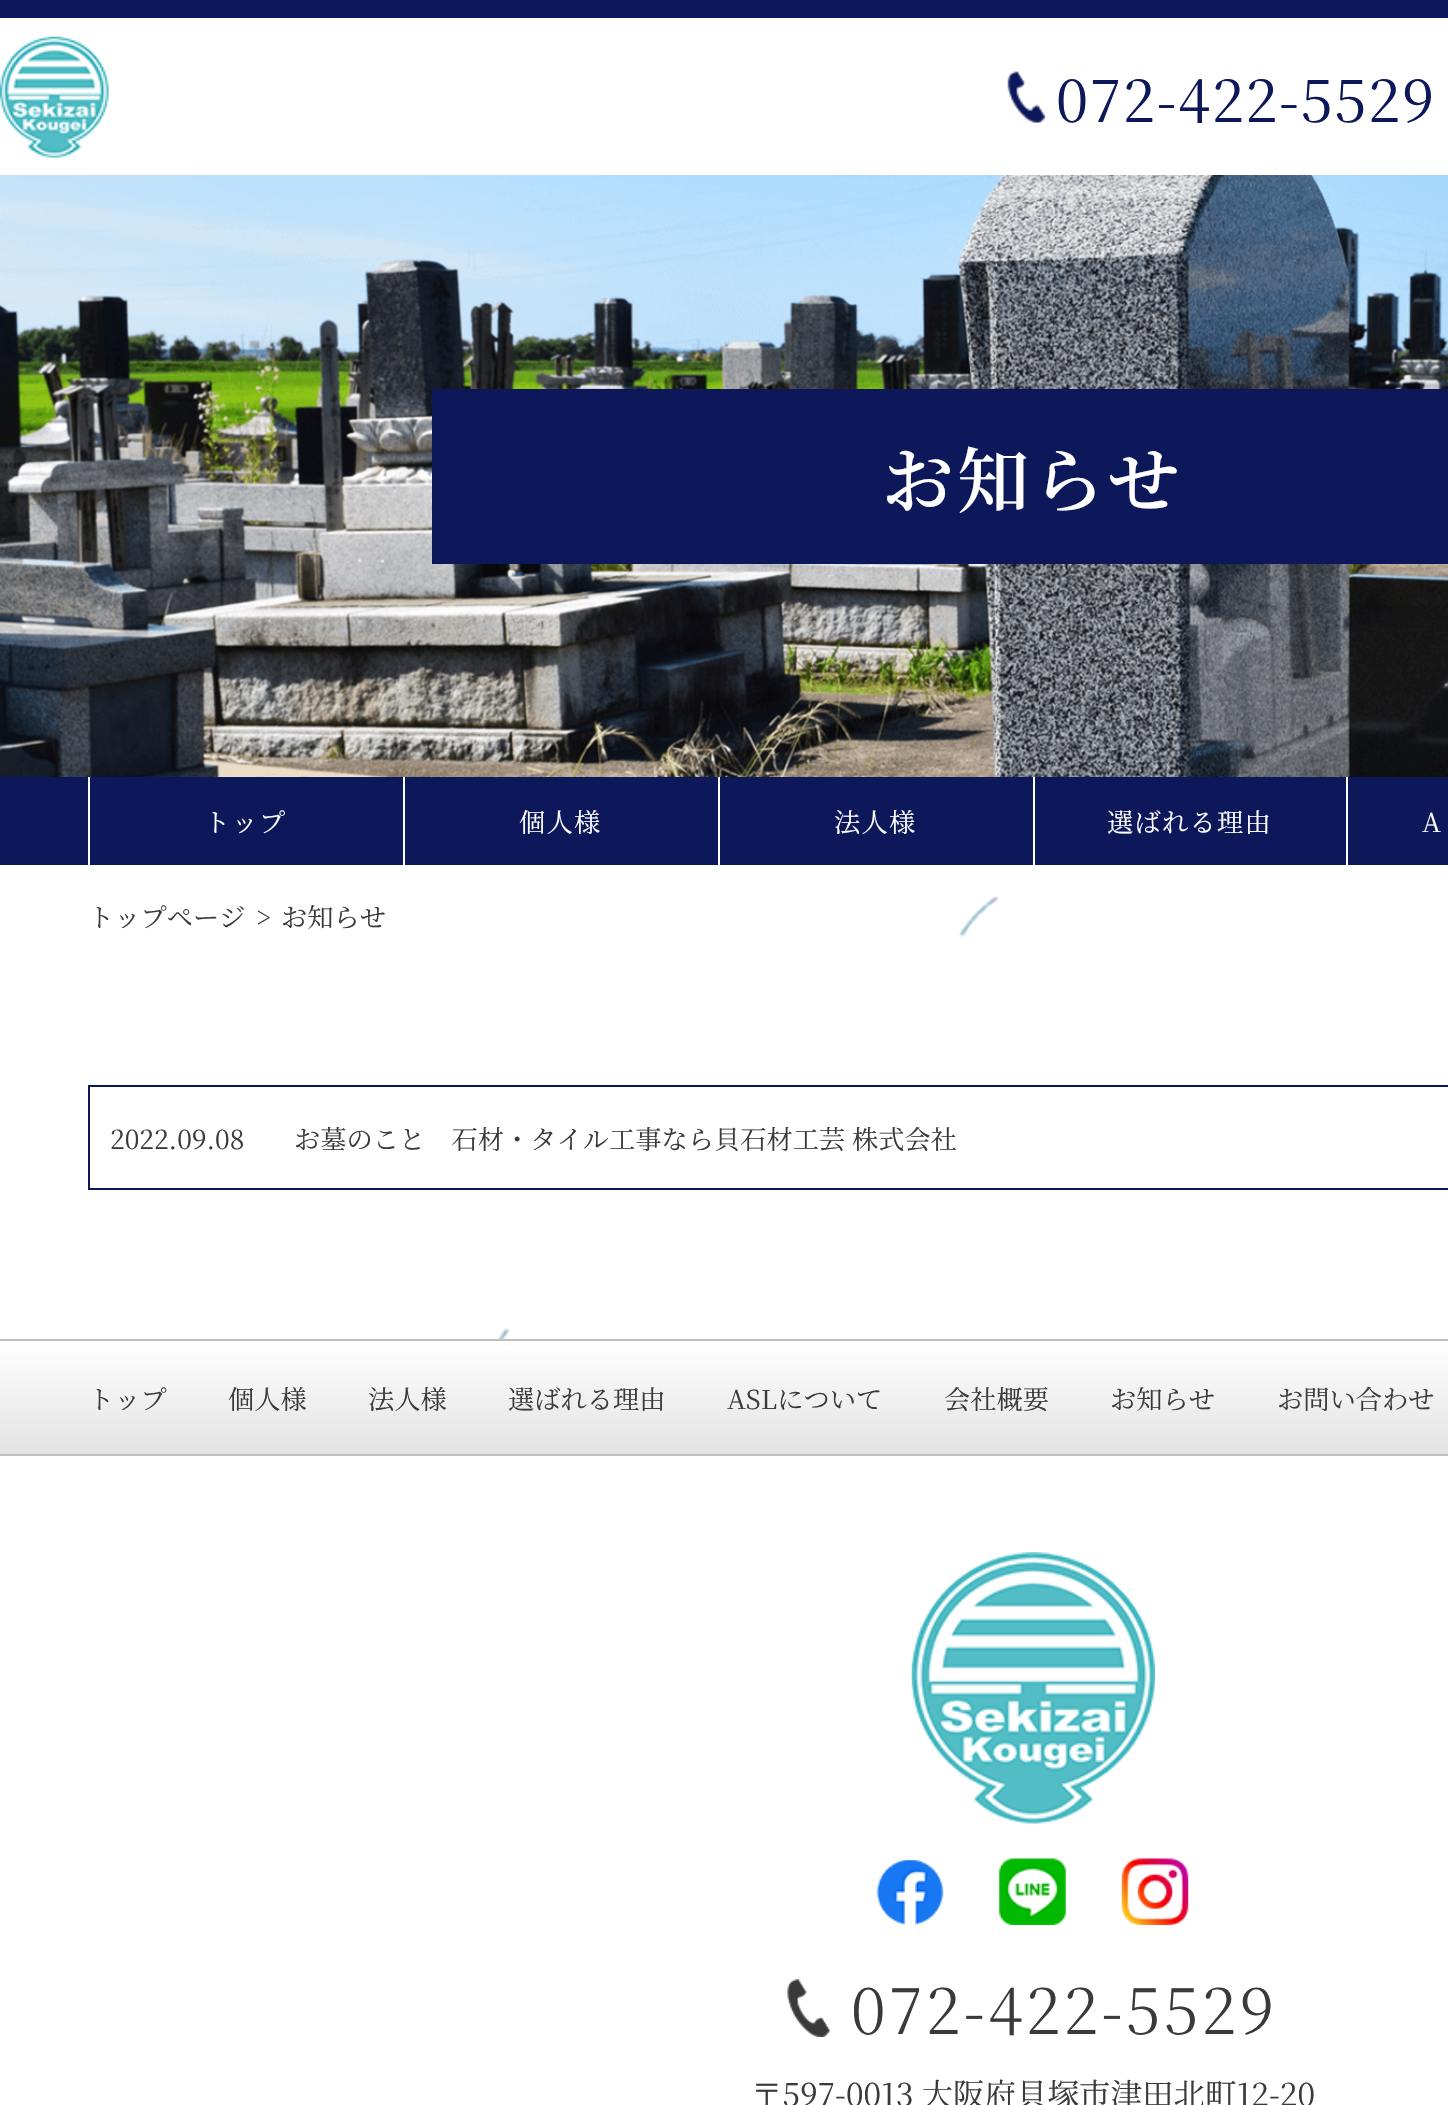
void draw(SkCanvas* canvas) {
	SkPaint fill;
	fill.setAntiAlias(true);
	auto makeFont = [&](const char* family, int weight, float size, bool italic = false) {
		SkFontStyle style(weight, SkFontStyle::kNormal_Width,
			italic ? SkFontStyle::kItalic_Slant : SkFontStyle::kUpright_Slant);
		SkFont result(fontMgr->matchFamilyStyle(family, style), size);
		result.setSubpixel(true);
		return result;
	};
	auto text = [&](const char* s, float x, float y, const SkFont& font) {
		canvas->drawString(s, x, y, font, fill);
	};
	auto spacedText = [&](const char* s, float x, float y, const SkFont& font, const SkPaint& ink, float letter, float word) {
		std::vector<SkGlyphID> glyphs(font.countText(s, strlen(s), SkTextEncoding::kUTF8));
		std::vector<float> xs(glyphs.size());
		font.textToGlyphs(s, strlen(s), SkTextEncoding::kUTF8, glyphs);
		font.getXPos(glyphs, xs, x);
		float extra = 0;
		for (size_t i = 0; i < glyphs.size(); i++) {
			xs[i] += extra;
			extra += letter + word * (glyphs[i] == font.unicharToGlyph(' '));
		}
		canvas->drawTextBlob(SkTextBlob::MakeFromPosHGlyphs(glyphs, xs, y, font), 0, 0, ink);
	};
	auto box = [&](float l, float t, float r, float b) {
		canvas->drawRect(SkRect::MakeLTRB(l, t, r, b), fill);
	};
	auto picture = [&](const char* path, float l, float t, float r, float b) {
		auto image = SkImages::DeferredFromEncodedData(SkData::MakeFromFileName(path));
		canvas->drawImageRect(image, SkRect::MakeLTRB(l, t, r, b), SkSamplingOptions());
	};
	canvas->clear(0xFFFFFFFF);
	fill.setColor(0xFF0D185B);
	box(0, 0, 1448, 18);
	picture("image0.png", 0, 36, 109, 158);
	picture("image1.png", 1007, 71, 1046, 123);
	picture("image2.png", 0, 175, 1448, 777);
	box(432, 389, 1448, 564);
	box(0, 777, 1448, 865);
	fill.setColor(0xFFFFFFFF);
	box(403, 777, 405, 865);
	box(88, 777, 90, 865);
	box(718, 777, 720, 865);
	box(1033, 777, 1035, 865);
	box(1346, 777, 1348, 865);
	picture("image3.png", 498, 895, 999, 1339);
	fill.setStyle(SkPaint::kStroke_Style);
	fill.setStrokeWidth(2);
	fill.setColor(0xFF0D185B);
	canvas->drawRect(SkRect::MakeLTRB(89, 1086, 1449, 1189), fill);
	fill.setStyle(SkPaint::kFill_Style);
	{
		const SkColor colors[] = {0xFFFFFFFF, 0xFFE3E3E3};
		const float stops[] = {0, 1};
		const SkPoint ends[] = {{1033, 1340}, {1033, 1454}};
		fill.setShader(SkGradientShader::MakeLinear(ends, colors, stops, 2, SkTileMode::kClamp));
		fill.setAlpha(255);
	}
	box(0, 1350, 1448, 1454);
	fill.setShader(nullptr);
	fill.setColor(0xFFC0C0C0);
	box(0, 1339, 1448, 1341);
	box(0, 1454, 1448, 1456);
	picture("image4.png", 911, 1552, 1155, 1824);
	picture("image5.png", 876, 1860, 944, 1925);
	picture("image6.png", 999, 1858, 1066, 1925);
	picture("image7.png", 1121, 1858, 1189, 1925);
	picture("image8.png", 787, 1979, 830, 2037);
	auto font1 = makeFont("Noto Serif JP", 400, 57.75f);
	fill.setColor(0xFF0D185B);
	spacedText("072-422-5529", 1056, 122, font1, fill, 1.5f, 0);
	auto font2 = makeFont("Noto Serif JP", 600, 71.75f);
	fill.setColor(0xFFFFFFFF);
	spacedText("お知らせ", 882, 507, font2, fill, 3.5f, 0);
	auto font3 = makeFont("Noto Serif JP", 400, 26.25f);
	spacedText("トップ", 204, 832, font3, fill, 1.25f, 0);
	spacedText("個人様", 519, 832, font3, fill, 1.25f, 0);
	spacedText("法人様", 834, 832, font3, fill, 1.25f, 0);
	spacedText("選ばれる理由", 1107, 832, font3, fill, 1.25f, 0);
	spacedText("A", 1422, 832, font3, fill, 1.25f, 0);
	fill.setColor(0xFF3A3A3A);
	text("トップページ", 88, 927, font3);
	text(">", 256, 927, font3);
	text("お知らせ", 281, 927, font3);
	text("2022.09.08", 110, 1149, font3);
	text("お墓のこと　石材・タイル工事なら貝石材工芸 株式会社", 294, 1149, font3);
	text("トップ", 88, 1409, font3);
	text("個人様", 228, 1409, font3);
	text("法人様", 368, 1409, font3);
	text("選ばれる理由", 508, 1409, font3);
	text("ASLについて", 727, 1409, font3);
	text("会社概要", 944, 1409, font3);
	text("お知らせ", 1110, 1409, font3);
	text("お問い合わせ", 1277, 1409, font3);
	auto font4 = makeFont("Noto Serif JP", 300, 63);
	spacedText("072-422-5529", 851, 2034, font4, fill, 3.1f, 0);
	auto font5 = makeFont("Noto Serif JP", 400, 31.5f);
	text("〒597-0013 大阪府貝塚市津田北町12-20", 751, 2106, font5);
}
